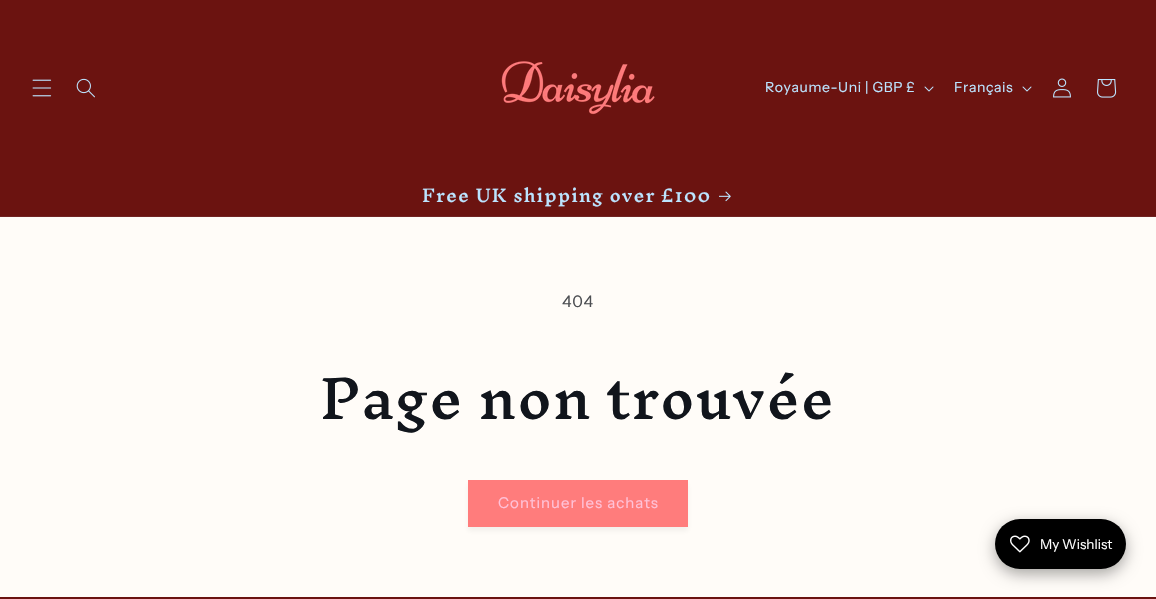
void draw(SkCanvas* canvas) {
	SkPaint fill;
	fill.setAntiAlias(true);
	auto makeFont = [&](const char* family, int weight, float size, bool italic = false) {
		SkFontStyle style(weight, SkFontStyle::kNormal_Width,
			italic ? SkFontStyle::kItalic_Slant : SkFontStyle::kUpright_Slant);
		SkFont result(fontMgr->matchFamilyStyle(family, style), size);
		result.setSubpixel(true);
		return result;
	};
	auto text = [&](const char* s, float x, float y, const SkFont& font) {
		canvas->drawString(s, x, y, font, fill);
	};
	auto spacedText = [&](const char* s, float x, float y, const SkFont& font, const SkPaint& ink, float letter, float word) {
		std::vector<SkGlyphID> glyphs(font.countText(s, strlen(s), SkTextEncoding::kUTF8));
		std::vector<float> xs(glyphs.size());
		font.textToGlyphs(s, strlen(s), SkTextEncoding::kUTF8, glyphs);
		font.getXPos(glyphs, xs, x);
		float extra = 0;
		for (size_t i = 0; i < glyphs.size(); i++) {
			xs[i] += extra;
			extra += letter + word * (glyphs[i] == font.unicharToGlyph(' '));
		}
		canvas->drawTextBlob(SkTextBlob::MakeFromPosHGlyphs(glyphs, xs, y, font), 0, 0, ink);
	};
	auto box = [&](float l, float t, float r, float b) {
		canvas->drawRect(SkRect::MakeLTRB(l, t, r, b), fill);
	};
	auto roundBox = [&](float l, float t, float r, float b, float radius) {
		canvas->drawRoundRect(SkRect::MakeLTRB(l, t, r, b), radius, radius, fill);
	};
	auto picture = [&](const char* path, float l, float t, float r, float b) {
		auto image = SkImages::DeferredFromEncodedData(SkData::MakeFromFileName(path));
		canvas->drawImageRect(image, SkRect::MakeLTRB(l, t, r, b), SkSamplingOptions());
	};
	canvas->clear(0xFFFFFCF8);
	fill.setColor(0xFF6B1310);
	box(0, 0, 1156, 216);
	picture("image0.png", 32, 79, 52, 97);
	picture("image1.png", 76, 78, 95, 98);
	picture("image2.png", 501, 61, 655, 115);
	picture("image3.png", 924, 86, 934, 92);
	picture("image3.png", 1022, 86, 1032, 92);
	picture("image4.png", 1053, 78, 1071, 98);
	picture("image5.png", 1097, 79, 1117, 98);
	fill.setColor(0xFF712423);
	box(0, 216, 1156, 217);
	picture("image6.png", 719, 191, 731, 202);
	fill.setColor(0x0D11151C);
	fill.setMaskFilter(SkMaskFilter::MakeBlur(kNormal_SkBlurStyle, 2.5f));
	canvas->drawRect(SkRect::MakeLTRB(468, 484, 688, 531), fill);
	fill.setMaskFilter(nullptr);
	fill.setColor(0xFFFF7C7C);
	box(468, 480, 688, 527);
	fill.setColor(0xFF6B1310);
	box(0, 597, 1156, 599);
	fill.setColor(0x59000000);
	fill.setMaskFilter(SkMaskFilter::MakeBlur(kNormal_SkBlurStyle, 7.5f));
	canvas->drawRoundRect(SkRect::MakeLTRB(995, 524, 1126, 574), 25, 25, fill);
	fill.setMaskFilter(nullptr);
	fill.setColor(0xFF000000);
	roundBox(995, 519, 1126, 569, 25);
	picture("image7.png", 1010, 535, 1030, 553);
	auto font1 = makeFont("Instrument Sans", 400, 14);
	fill.setColor(0xFFBCE4FF);
	spacedText("Royaume-Uni | GBP £", 765, 92, font1, fill, 0.6f, 0);
	spacedText("Français", 954, 92, font1, fill, 0.6f, 0);
	auto font2 = makeFont("Inknut Antiqua", 500, 16.9f);
	spacedText("Free UK shipping over £100", 422, 202, font2, fill, 1, 0);
	auto font3 = makeFont("Instrument Sans", 400, 16);
	fill.setColor(0xFF4D4F53);
	spacedText("404", 562, 307, font3, fill, 0.6f, 0);
	auto font4 = makeFont("Inknut Antiqua", 500, 52);
	fill.setColor(0xFF11151C);
	spacedText("Page non trouvée", 320, 419, font4, fill, 0.75f, 0);
	auto font5 = makeFont("Instrument Sans", 400, 15);
	fill.setColor(0xFFFFC2D8);
	spacedText("Continuer les achats", 498, 508, font5, fill, 1, 0);
	auto font6 = makeFont("Instrument Sans", 400, 13.5f);
	fill.setColor(0xFFFFFFFF);
	text("My Wishlist", 1040, 549, font6);
}
